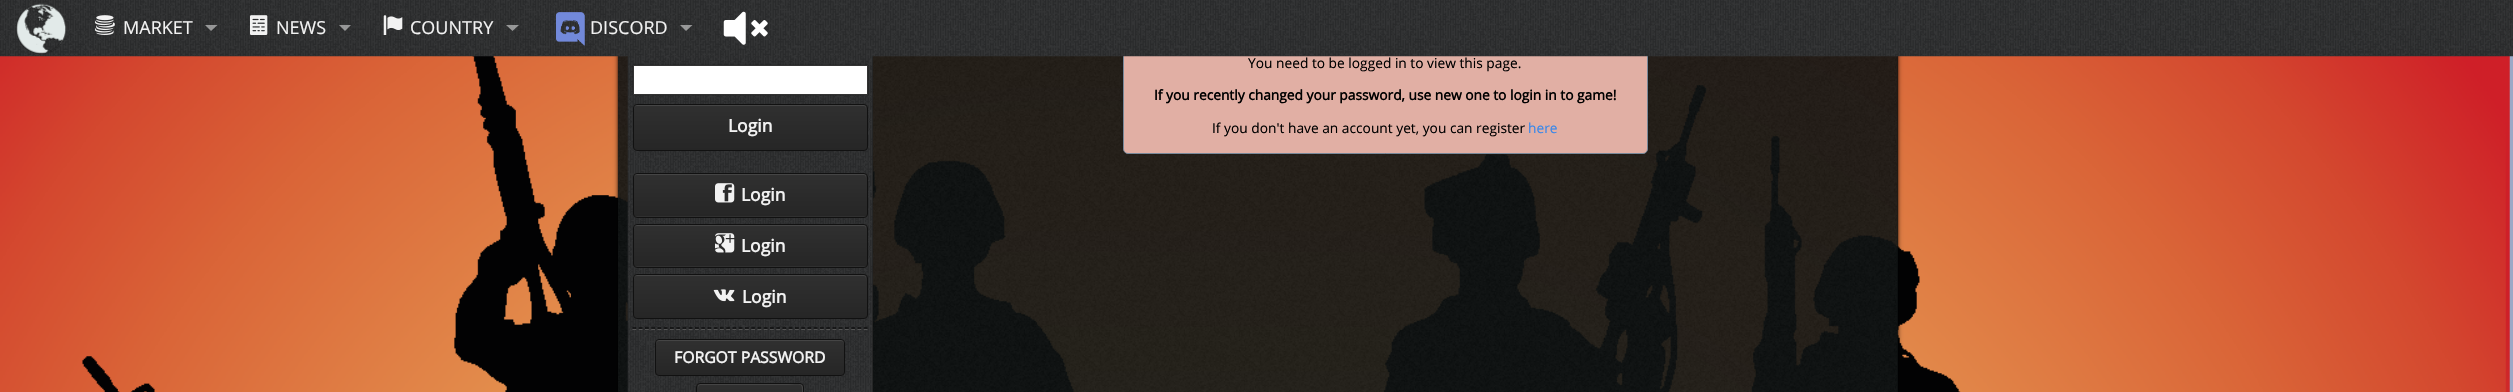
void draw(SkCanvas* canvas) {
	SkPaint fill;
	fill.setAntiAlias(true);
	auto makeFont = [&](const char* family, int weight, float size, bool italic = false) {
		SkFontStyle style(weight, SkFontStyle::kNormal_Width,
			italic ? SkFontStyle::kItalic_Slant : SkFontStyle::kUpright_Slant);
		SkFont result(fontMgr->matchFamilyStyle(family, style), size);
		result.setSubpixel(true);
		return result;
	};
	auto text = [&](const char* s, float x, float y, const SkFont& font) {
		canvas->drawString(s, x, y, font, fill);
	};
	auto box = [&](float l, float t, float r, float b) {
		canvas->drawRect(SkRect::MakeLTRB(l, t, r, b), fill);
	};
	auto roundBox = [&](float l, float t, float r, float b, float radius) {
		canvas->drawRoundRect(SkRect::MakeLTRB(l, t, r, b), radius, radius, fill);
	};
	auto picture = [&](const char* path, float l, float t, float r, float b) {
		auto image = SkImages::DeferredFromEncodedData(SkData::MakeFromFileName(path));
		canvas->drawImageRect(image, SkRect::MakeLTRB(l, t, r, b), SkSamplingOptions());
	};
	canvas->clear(0xFFFFFFFF);
	picture("image0.png", 0, 56, 2513, 392);
	canvas->save();
	canvas->clipPath(SkPathBuilder(SkPathFillType::kEvenOdd).moveTo(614, 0).lineTo(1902, 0).lineTo(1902, 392).lineTo(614, 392).close().moveTo(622, -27).lineTo(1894, -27).cubicTo(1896, -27, 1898, -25, 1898, -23).lineTo(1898, 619).cubicTo(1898, 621, 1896, 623, 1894, 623).lineTo(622, 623).cubicTo(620, 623, 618, 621, 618, 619).lineTo(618, -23).cubicTo(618, -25, 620, -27, 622, -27).close().detach(), true);
	fill.setColor(0x99000000);
	fill.setMaskFilter(SkMaskFilter::MakeBlur(kNormal_SkBlurStyle, 1));
	canvas->drawRoundRect(SkRect::MakeLTRB(618, -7, 1898, 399), 4, 4, fill);
	fill.setMaskFilter(nullptr);
	canvas->restore();
	canvas->save();
	canvas->clipPath(SkPathBuilder(SkPathFillType::kEvenOdd).moveTo(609, 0).lineTo(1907, 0).lineTo(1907, 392).lineTo(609, 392).close().moveTo(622, -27).lineTo(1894, -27).cubicTo(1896, -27, 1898, -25, 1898, -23).lineTo(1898, 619).cubicTo(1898, 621, 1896, 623, 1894, 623).lineTo(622, 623).cubicTo(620, 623, 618, 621, 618, 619).lineTo(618, -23).cubicTo(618, -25, 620, -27, 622, -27).close().detach(), true);
	fill.setMaskFilter(SkMaskFilter::MakeBlur(kNormal_SkBlurStyle, 2.5f));
	canvas->drawRoundRect(SkRect::MakeLTRB(618, -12, 1898, 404), 4, 4, fill);
	fill.setMaskFilter(nullptr);
	canvas->restore();
	fill.setColor(0xE60C1010);
	box(618, 56, 1898, 392);
	picture("image1.png", 618, 56, 1897, 392);
	fill.setColor(0x4D000000);
	fill.setMaskFilter(SkMaskFilter::MakeBlur(kNormal_SkBlurStyle, 1));
	canvas->drawRoundRect(SkRect::MakeLTRB(1123, 43, 1648, 154), 5, 5, fill);
	fill.setMaskFilter(nullptr);
	fill.setColor(0xFFE1AFA4);
	canvas->drawRoundRect(SkRect::MakeLTRB(1123.5f, 43.5f, 1647.5f, 153.5f), 4.5f, 4.5f, fill);
	fill.setStyle(SkPaint::kStroke_Style);
	fill.setStrokeWidth(1);
	fill.setColor(0xFF778899);
	canvas->drawRoundRect(SkRect::MakeLTRB(1123.5f, 43.5f, 1647.5f, 153.5f), 4.5f, 4.5f, fill);
	fill.setStyle(SkPaint::kFill_Style);
	fill.setColor(0xFF222222);
	box(872, 56, 873, 392);
	picture("image9.png", 627, 56, 873, 392);
	picture("image2.png", 0, 0, 2513, 57);
	picture("image3.png", 16, 3, 67, 54);
	picture("image4.png", 95, 15, 115, 35);
	fill.setColor(0x80FFFFFF);
	canvas->drawPath(SkPathBuilder().moveTo(205, 25).lineTo(217.5f, 25).lineTo(211, 31).close().detach(), fill);
	picture("image5.png", 250, 15, 268, 35);
	canvas->drawPath(SkPathBuilder().moveTo(339, 25).lineTo(351, 25).lineTo(345, 31).close().detach(), fill);
	picture("image6.png", 383, 15, 403, 35);
	canvas->drawPath(SkPathBuilder().moveTo(506, 25).lineTo(519, 25).lineTo(512.5f, 31).close().detach(), fill);
	picture("image7.png", 555, 12, 585, 46);
	canvas->drawPath(SkPathBuilder().moveTo(680, 25).lineTo(692.5f, 25).lineTo(686, 31).close().detach(), fill);
	picture("image8.png", 723, 11, 768, 45);
	fill.setColor(0x99000000);
	fill.setMaskFilter(SkMaskFilter::MakeBlur(kNormal_SkBlurStyle, 0.5f));
	canvas->drawRect(SkRect::MakeLTRB(633, 65, 868, 95), fill);
	fill.setMaskFilter(nullptr);
	fill.setColor(0xFFFFFFFF);
	canvas->drawRect(SkRect::MakeLTRB(633.5f, 65.5f, 867.5f, 94.5f), fill);
	fill.setStyle(SkPaint::kStroke_Style);
	fill.setColor(0xFF333333);
	canvas->drawRect(SkRect::MakeLTRB(633.5f, 65.5f, 867.5f, 94.5f), fill);
	canvas->save();
	canvas->clipPath(SkPathBuilder().moveTo(637, 104).lineTo(864, 104).cubicTo(866, 104, 868, 106, 868, 108).lineTo(868, 147).cubicTo(868, 149, 866, 151, 864, 151).lineTo(637, 151).cubicTo(635, 151, 633, 149, 633, 147).lineTo(633, 108).cubicTo(633, 106, 635, 104, 637, 104).close().detach(), true);
	fill.setStyle(SkPaint::kFill_Style);
	{
		const SkColor colors[] = {0xFF303030, 0xFF262626};
		const float stops[] = {0, 1};
		const SkPoint ends[] = {{750, 105}, {750, 150}};
		fill.setShader(SkGradientShader::MakeLinear(ends, colors, stops, 2, SkTileMode::kClamp));
		fill.setAlpha(255);
	}
	box(633, 105, 868, 150);
	canvas->restore();
	fill.setShader(nullptr);
	fill.setColor(0xFF454545);
	canvas->drawPath(SkPathBuilder().moveTo(636, 106).lineTo(864, 106).cubicTo(865, 106, 866, 107, 866, 109).cubicTo(866, 107, 866, 105, 864, 105).lineTo(636, 105).cubicTo(634, 105, 634, 107, 634, 109).cubicTo(634, 107, 635, 106, 636, 106).close().detach(), fill);
	fill.setStyle(SkPaint::kStroke_Style);
	fill.setColor(0xFF111111);
	canvas->drawRoundRect(SkRect::MakeLTRB(633.5f, 104.5f, 867.5f, 150.5f), 3.5f, 3.5f, fill);
	fill.setStyle(SkPaint::kFill_Style);
	fill.setColor(0xFF303030);
	roundBox(633, 173, 868, 218, 4);
	canvas->save();
	canvas->clipPath(SkPathBuilder().moveTo(637, 173).lineTo(864, 173).cubicTo(866, 173, 868, 175, 868, 177).lineTo(868, 214).cubicTo(868, 216, 866, 218, 864, 218).lineTo(637, 218).cubicTo(635, 218, 633, 216, 633, 214).lineTo(633, 177).cubicTo(633, 175, 635, 173, 637, 173).close().detach(), true);
	{
		const SkColor colors[] = {0xFF303030, 0xFF262626};
		const float stops[] = {0, 1};
		const SkPoint ends[] = {{750, 174}, {750, 216}};
		fill.setShader(SkGradientShader::MakeLinear(ends, colors, stops, 2, SkTileMode::kClamp));
		fill.setAlpha(255);
	}
	box(633, 174, 868, 216);
	canvas->restore();
	fill.setShader(nullptr);
	fill.setColor(0xFF454545);
	canvas->drawPath(SkPathBuilder().moveTo(636, 175).lineTo(864, 175).cubicTo(865, 175, 866, 176, 866, 178).cubicTo(866, 176, 866, 174, 864, 174).lineTo(636, 174).cubicTo(634, 174, 634, 176, 634, 178).cubicTo(634, 176, 635, 175, 636, 175).close().detach(), fill);
	fill.setStyle(SkPaint::kStroke_Style);
	fill.setColor(0xFF111111);
	canvas->drawRoundRect(SkRect::MakeLTRB(633.5f, 173.5f, 867.5f, 217.5f), 3.5f, 3.5f, fill);
	picture("image10.png", 715, 183, 735, 203);
	fill.setStyle(SkPaint::kFill_Style);
	fill.setColor(0xFF303030);
	roundBox(633, 224, 868, 268, 4);
	canvas->save();
	canvas->clipPath(SkPathBuilder().moveTo(637, 224).lineTo(864, 224).cubicTo(866, 224, 868, 226, 868, 228).lineTo(868, 264).cubicTo(868, 266, 866, 268, 864, 268).lineTo(637, 268).cubicTo(635, 268, 633, 266, 633, 264).lineTo(633, 228).cubicTo(633, 226, 635, 224, 637, 224).close().detach(), true);
	{
		const SkColor colors[] = {0xFF303030, 0xFF262626};
		const float stops[] = {0, 1};
		const SkPoint ends[] = {{750, 225}, {750, 266}};
		fill.setShader(SkGradientShader::MakeLinear(ends, colors, stops, 2, SkTileMode::kClamp));
		fill.setAlpha(255);
	}
	box(633, 225, 868, 266);
	canvas->restore();
	fill.setShader(nullptr);
	fill.setColor(0xFF454545);
	canvas->drawPath(SkPathBuilder().moveTo(636, 226).lineTo(864, 226).cubicTo(865, 226, 866, 227, 866, 229).cubicTo(866, 227, 866, 225, 864, 225).lineTo(636, 225).cubicTo(634, 225, 634, 227, 634, 229).cubicTo(634, 227, 635, 226, 636, 226).close().detach(), fill);
	fill.setStyle(SkPaint::kStroke_Style);
	fill.setColor(0xFF111111);
	canvas->drawRoundRect(SkRect::MakeLTRB(633.5f, 224.5f, 867.5f, 267.5f), 3.5f, 3.5f, fill);
	picture("image11.png", 715, 233, 735, 253);
	canvas->save();
	canvas->clipPath(SkPathBuilder().moveTo(637, 274).lineTo(864, 274).cubicTo(866, 274, 868, 276, 868, 278).lineTo(868, 315).cubicTo(868, 317, 866, 319, 864, 319).lineTo(637, 319).cubicTo(635, 319, 633, 317, 633, 315).lineTo(633, 278).cubicTo(633, 276, 635, 274, 637, 274).close().detach(), true);
	fill.setStyle(SkPaint::kFill_Style);
	{
		const SkColor colors[] = {0xFF303030, 0xFF262626};
		const float stops[] = {0, 1};
		const SkPoint ends[] = {{750, 275}, {750, 318}};
		fill.setShader(SkGradientShader::MakeLinear(ends, colors, stops, 2, SkTileMode::kClamp));
		fill.setAlpha(255);
	}
	box(633, 275, 868, 318);
	canvas->restore();
	fill.setShader(nullptr);
	fill.setColor(0xFF454545);
	canvas->drawPath(SkPathBuilder().moveTo(636, 276).lineTo(864, 276).cubicTo(865, 276, 866, 277, 866, 279).cubicTo(866, 277, 866, 275, 864, 275).lineTo(636, 275).cubicTo(634, 275, 634, 277, 634, 279).cubicTo(634, 277, 635, 276, 636, 276).close().detach(), fill);
	fill.setStyle(SkPaint::kStroke_Style);
	fill.setColor(0xFF111111);
	canvas->drawRoundRect(SkRect::MakeLTRB(633.5f, 274.5f, 867.5f, 318.5f), 3.5f, 3.5f, fill);
	picture("image12.png", 713, 289, 735, 302);
	fill.setStrokeWidth(1.2f);
	fill.setColor(0xFF000000);
	fill.setPathEffect(SkDashPathEffect::Make({{3.75f, 2.5f}}, 0));
	canvas->drawPath(SkPathBuilder().moveTo(632.5f, 328).lineTo(867.5f, 328).detach(), fill);
	fill.setPathEffect(nullptr);
	fill.setColor(0xFF555555);
	fill.setPathEffect(SkDashPathEffect::Make({{3.75f, 2.5f}}, 0));
	canvas->drawPath(SkPathBuilder().moveTo(632.5f, 329.5f).lineTo(867.5f, 329.5f).detach(), fill);
	fill.setPathEffect(nullptr);
	canvas->save();
	canvas->clipPath(SkPathBuilder().moveTo(659, 339).lineTo(841, 339).cubicTo(843, 339, 845, 341, 845, 343).lineTo(845, 372).cubicTo(845, 374, 843, 376, 841, 376).lineTo(659, 376).cubicTo(657, 376, 655, 374, 655, 372).lineTo(655, 343).cubicTo(655, 341, 657, 339, 659, 339).close().detach(), true);
	fill.setStyle(SkPaint::kFill_Style);
	{
		const SkColor colors[] = {0xFF303030, 0xFF262626};
		const float stops[] = {0, 1};
		const SkPoint ends[] = {{750, 340}, {750, 375}};
		fill.setShader(SkGradientShader::MakeLinear(ends, colors, stops, 2, SkTileMode::kClamp));
		fill.setAlpha(255);
	}
	box(655, 340, 845, 375);
	canvas->restore();
	fill.setShader(nullptr);
	fill.setColor(0xFF454545);
	canvas->drawPath(SkPathBuilder().moveTo(659, 341).lineTo(841, 341).cubicTo(843, 341, 844, 342, 844, 344).cubicTo(844, 342, 844, 340, 842, 340).lineTo(658, 340).cubicTo(656, 340, 656, 342, 656, 344).cubicTo(656, 342, 657, 341, 659, 341).close().detach(), fill);
	fill.setStyle(SkPaint::kStroke_Style);
	fill.setStrokeWidth(1);
	fill.setColor(0xFF111111);
	canvas->drawRoundRect(SkRect::MakeLTRB(655.5f, 339.5f, 844.5f, 375.5f), 3.5f, 3.5f, fill);
	canvas->save();
	canvas->clipPath(SkPathBuilder().moveTo(700, 383).lineTo(800, 383).cubicTo(802, 383, 804, 385, 804, 387).lineTo(804, 415).cubicTo(804, 417, 802, 419, 800, 419).lineTo(700, 419).cubicTo(698, 419, 696, 417, 696, 415).lineTo(696, 387).cubicTo(696, 385, 698, 383, 700, 383).close().detach(), true);
	fill.setStyle(SkPaint::kFill_Style);
	{
		const SkColor colors[] = {0xFF303030, 0xFF262626};
		const float stops[] = {0, 1};
		const SkPoint ends[] = {{750, 384}, {750, 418}};
		fill.setShader(SkGradientShader::MakeLinear(ends, colors, stops, 2, SkTileMode::kClamp));
		fill.setAlpha(255);
	}
	box(696, 384, 804, 392);
	canvas->restore();
	fill.setShader(nullptr);
	fill.setColor(0xFF454545);
	canvas->drawPath(SkPathBuilder().moveTo(700, 385).lineTo(783, 385).cubicTo(804, 385, 802, 381, 802, 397).lineTo(802, 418).cubicTo(802, 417, 803, 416, 803, 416).lineTo(803, 386).cubicTo(803, 385, 802, 384, 800, 384).lineTo(700, 384).cubicTo(699, 384, 698, 385, 698, 386).lineTo(698, 388).cubicTo(698, 386, 699, 385, 700, 385).close().detach(), fill);
	fill.setStyle(SkPaint::kStroke_Style);
	fill.setColor(0xFF111111);
	canvas->drawRoundRect(SkRect::MakeLTRB(696.5f, 383.5f, 803.5f, 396.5f), 3.5f, 3.5f, fill);
	auto font1 = makeFont("Open Sans", 400, 18);
	fill.setStyle(SkPaint::kFill_Style);
	fill.setColor(0xFFF2F2F2);
	text("MARKET", 123, 34, font1);
	text("NEWS", 276, 34, font1);
	text("COUNTRY", 410, 34, font1);
	text("DISCORD", 590, 34, font1);
	auto font2 = makeFont("Open Sans", 400, 13.75f);
	fill.setColor(0xFF000000);
	text("You need to be logged in to view this page.", 1248, 68, font2);
	auto font3 = makeFont("Open Sans", 700, 13.75f);
	text("If you recently changed your password, use new one to login in to game!", 1154, 100, font3);
	text("If you don't have an account yet, you can register", 1212, 133, font2);
	fill.setColor(0xFF3787EA);
	text("here", 1528, 133, font2);
	auto font4 = makeFont("Open Sans", 700, 17.5f);
	fill.setColor(0xFFF2F2F2);
	text("Login", 728, 132, font4);
	text("Login", 741, 201, font4);
	text("Login", 741, 252, font4);
	text("Login", 742, 303, font4);
	auto font5 = makeFont("Open Sans", 700, 15.75f);
	text("FORGOT PASSWORD", 674, 363, font5);
}
